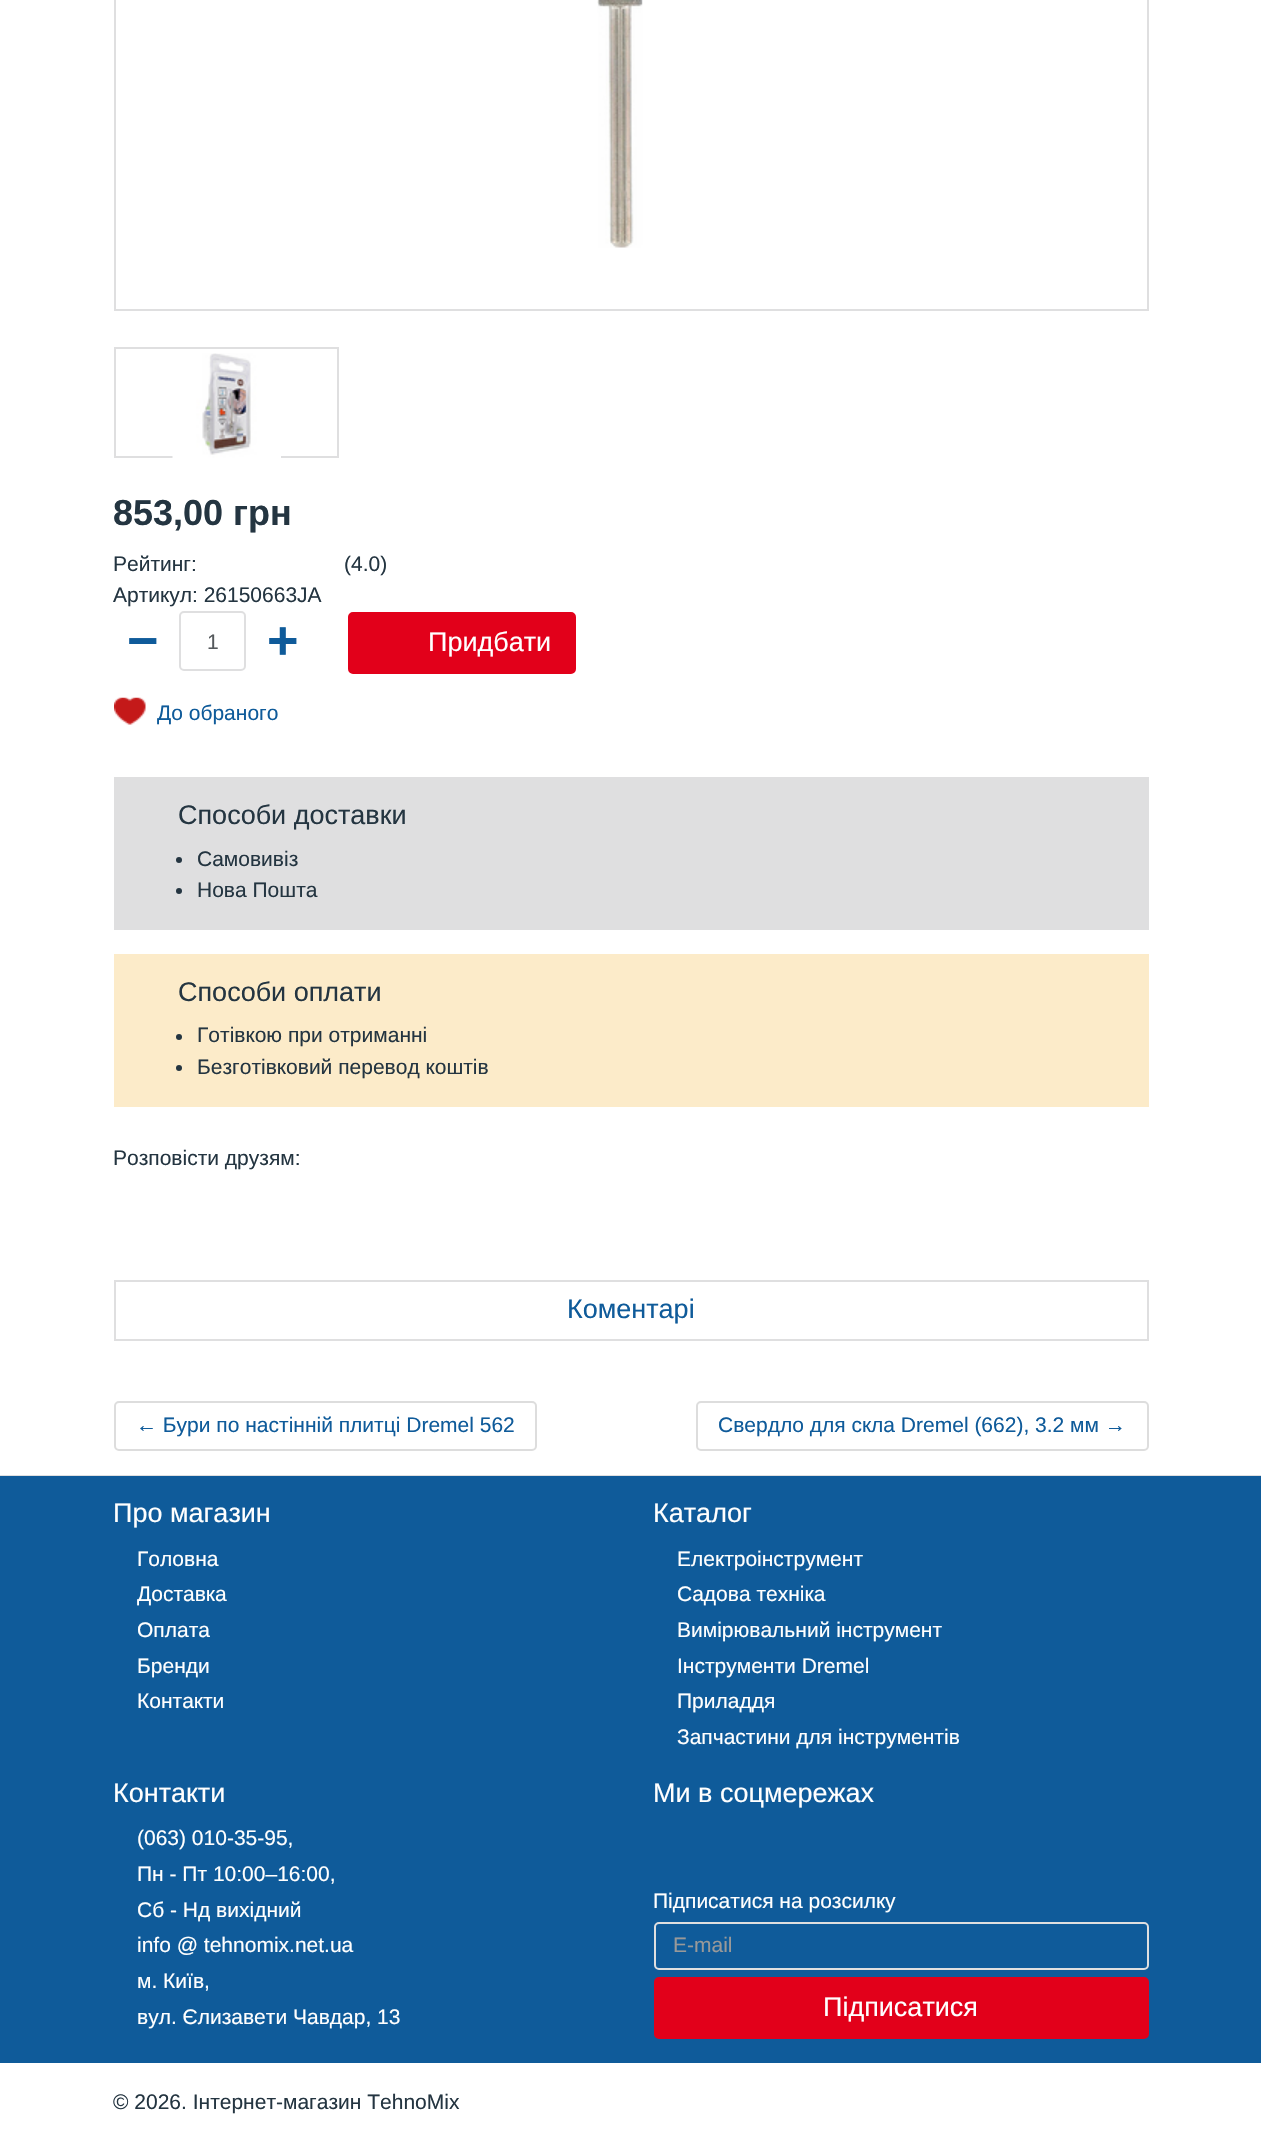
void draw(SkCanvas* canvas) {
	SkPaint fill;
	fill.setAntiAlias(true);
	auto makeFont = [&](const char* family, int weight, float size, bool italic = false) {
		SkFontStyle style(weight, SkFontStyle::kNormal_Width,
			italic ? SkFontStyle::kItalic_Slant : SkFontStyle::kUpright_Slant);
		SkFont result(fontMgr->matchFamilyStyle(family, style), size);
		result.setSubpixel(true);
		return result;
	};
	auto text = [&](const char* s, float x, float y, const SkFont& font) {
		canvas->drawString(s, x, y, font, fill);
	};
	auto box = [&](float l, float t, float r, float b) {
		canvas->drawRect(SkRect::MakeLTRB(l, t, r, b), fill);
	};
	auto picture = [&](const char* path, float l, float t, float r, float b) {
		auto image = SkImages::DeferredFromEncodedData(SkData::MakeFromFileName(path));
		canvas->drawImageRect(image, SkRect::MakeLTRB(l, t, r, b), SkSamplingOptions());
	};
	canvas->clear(0xFFFFFFFF);
	fill.setColor(0xFFDFDFE0);
	box(0, 1475, 1261, 1476);
	fill.setStyle(SkPaint::kStroke_Style);
	fill.setStrokeWidth(2);
	canvas->drawRect(SkRect::MakeLTRB(115, -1, 1148, 310), fill);
	picture("image0.png", 597, 0, 643, 248);
	canvas->drawRect(SkRect::MakeLTRB(115, 348, 338, 457), fill);
	picture("image1.png", 172, 353, 281, 458);
	canvas->drawRoundRect(SkRect::MakeLTRB(180, 612, 245, 670), 4, 4, fill);
	fill.setStyle(SkPaint::kFill_Style);
	fill.setColor(0xFFE2001A);
	canvas->drawRoundRect(SkRect::MakeLTRB(349, 613, 575, 673), 4, 4, fill);
	fill.setStyle(SkPaint::kStroke_Style);
	canvas->drawRoundRect(SkRect::MakeLTRB(349, 613, 575, 673), 4, 4, fill);
	picture("image2.png", 114, 697, 146, 725);
	fill.setStyle(SkPaint::kFill_Style);
	fill.setColor(0xFFDFDFE0);
	box(114, 777, 1149, 930);
	fill.setColor(0xFF243541);
	canvas->drawCircle(179, 860, 3, fill);
	canvas->drawCircle(179, 891, 3, fill);
	fill.setColor(0xFFFCEBC9);
	box(114, 954, 1149, 1107);
	fill.setColor(0xFF243541);
	canvas->drawCircle(179, 1037, 3, fill);
	canvas->drawCircle(179, 1068, 3, fill);
	fill.setStyle(SkPaint::kStroke_Style);
	fill.setColor(0xFFDFDFE0);
	canvas->drawRect(SkRect::MakeLTRB(115, 1281, 1148, 1340), fill);
	fill.setColor(0xFFDDDDDD);
	canvas->drawRoundRect(SkRect::MakeLTRB(115, 1402, 536, 1450), 4, 4, fill);
	canvas->drawRoundRect(SkRect::MakeLTRB(697, 1402, 1148, 1450), 4, 4, fill);
	fill.setStyle(SkPaint::kFill_Style);
	fill.setColor(0xFF0F5B9A);
	box(0, 1476, 1261, 2063);
	fill.setStyle(SkPaint::kStroke_Style);
	fill.setColor(0xFFDFDFE0);
	canvas->drawRoundRect(SkRect::MakeLTRB(655, 1923, 1148, 1969), 4, 4, fill);
	fill.setStyle(SkPaint::kFill_Style);
	fill.setColor(0xFFE2001A);
	canvas->drawRoundRect(SkRect::MakeLTRB(655, 1978, 1148, 2038), 4, 4, fill);
	fill.setStyle(SkPaint::kStroke_Style);
	canvas->drawRoundRect(SkRect::MakeLTRB(655, 1978, 1148, 2038), 4, 4, fill);
	auto font1 = makeFont("Liberation Sans", 700, 36);
	fill.setStyle(SkPaint::kFill_Style);
	fill.setColor(0xFF243541);
	text("853,00 грн", 113, 525, font1);
	auto font2 = makeFont("Liberation Sans", 400, 21);
	text("Рейтинг:", 113, 571, font2);
	text("(4.0)", 344, 571, font2);
	text("Артикул: 26150663JA", 113, 602, font2);
	auto font3 = makeFont("Liberation Sans", 700, 54);
	fill.setColor(0xFF0F5B9A);
	text("−", 127, 659, font3);
	fill.setColor(0xFF55595C);
	text("1", 207, 649, font2);
	fill.setColor(0xFF0F5B9A);
	text("+", 267, 659, font3);
	auto font4 = makeFont("Liberation Sans", 400, 27);
	fill.setColor(0xFFFFFFFF);
	text("Придбати", 428, 651, font4);
	fill.setColor(0xFF0F5B9A);
	text("До обраного", 157, 720, font2);
	fill.setColor(0xFF243541);
	text("Способи доставки", 178, 824, font4);
	text("Самовивіз", 197, 866, font2);
	text("Нова Пошта", 197, 897, font2);
	text("Способи оплати", 178, 1001, font4);
	text("Готівкою при отриманні", 197, 1042, font2);
	text("Безготівковий перевод коштів", 197, 1074, font2);
	text("Розповісти друзям:", 113, 1165, font2);
	fill.setColor(0xFF0F5B9A);
	text("Коментарі", 567, 1318, font4);
	text("← Бури по настінній плитці Dremel 562", 136, 1432, font2);
	text("Свердло для скла Dremel (662), 3.2 мм →", 718, 1432, font2);
	fill.setColor(0xFFFFFFFF);
	text("Про магазин", 113, 1522, font4);
	text("Головна", 137, 1566, font2);
	text("Доставка", 137, 1601, font2);
	text("Оплата", 137, 1637, font2);
	text("Бренди", 137, 1673, font2);
	text("Контакти", 137, 1708, font2);
	text("Каталог", 653, 1522, font4);
	text("Електроінструмент", 677, 1566, font2);
	text("Садова техніка", 677, 1601, font2);
	text("Вимірювальний інструмент", 677, 1637, font2);
	text("Інструменти Dremel", 677, 1673, font2);
	text("Приладдя", 677, 1708, font2);
	text("Запчастини для інструментів", 677, 1744, font2);
	text("Контакти", 113, 1802, font4);
	text("(063) 010-35-95,", 137, 1845, font2);
	text("Пн - Пт 10:00–16:00,", 137, 1881, font2);
	text("Сб - Нд вихідний", 137, 1917, font2);
	text("info @ tehnomix.net.ua", 137, 1952, font2);
	text("м. Київ,", 137, 1988, font2);
	text("вул. Єлизавети Чавдар, 13", 137, 2024, font2);
	text("Ми в соцмережах", 653, 1802, font4);
	text("Підписатися на розсилку", 653, 1908, font2);
	fill.setColor(0xFF999999);
	text("E-mail", 673, 1952, font2);
	fill.setColor(0xFFFFFFFF);
	text("Підписатися", 823, 2016, font4);
	fill.setColor(0xFF243541);
	text("© 2026. Інтернет-магазин TehnoMix", 113, 2109, font2);
}
